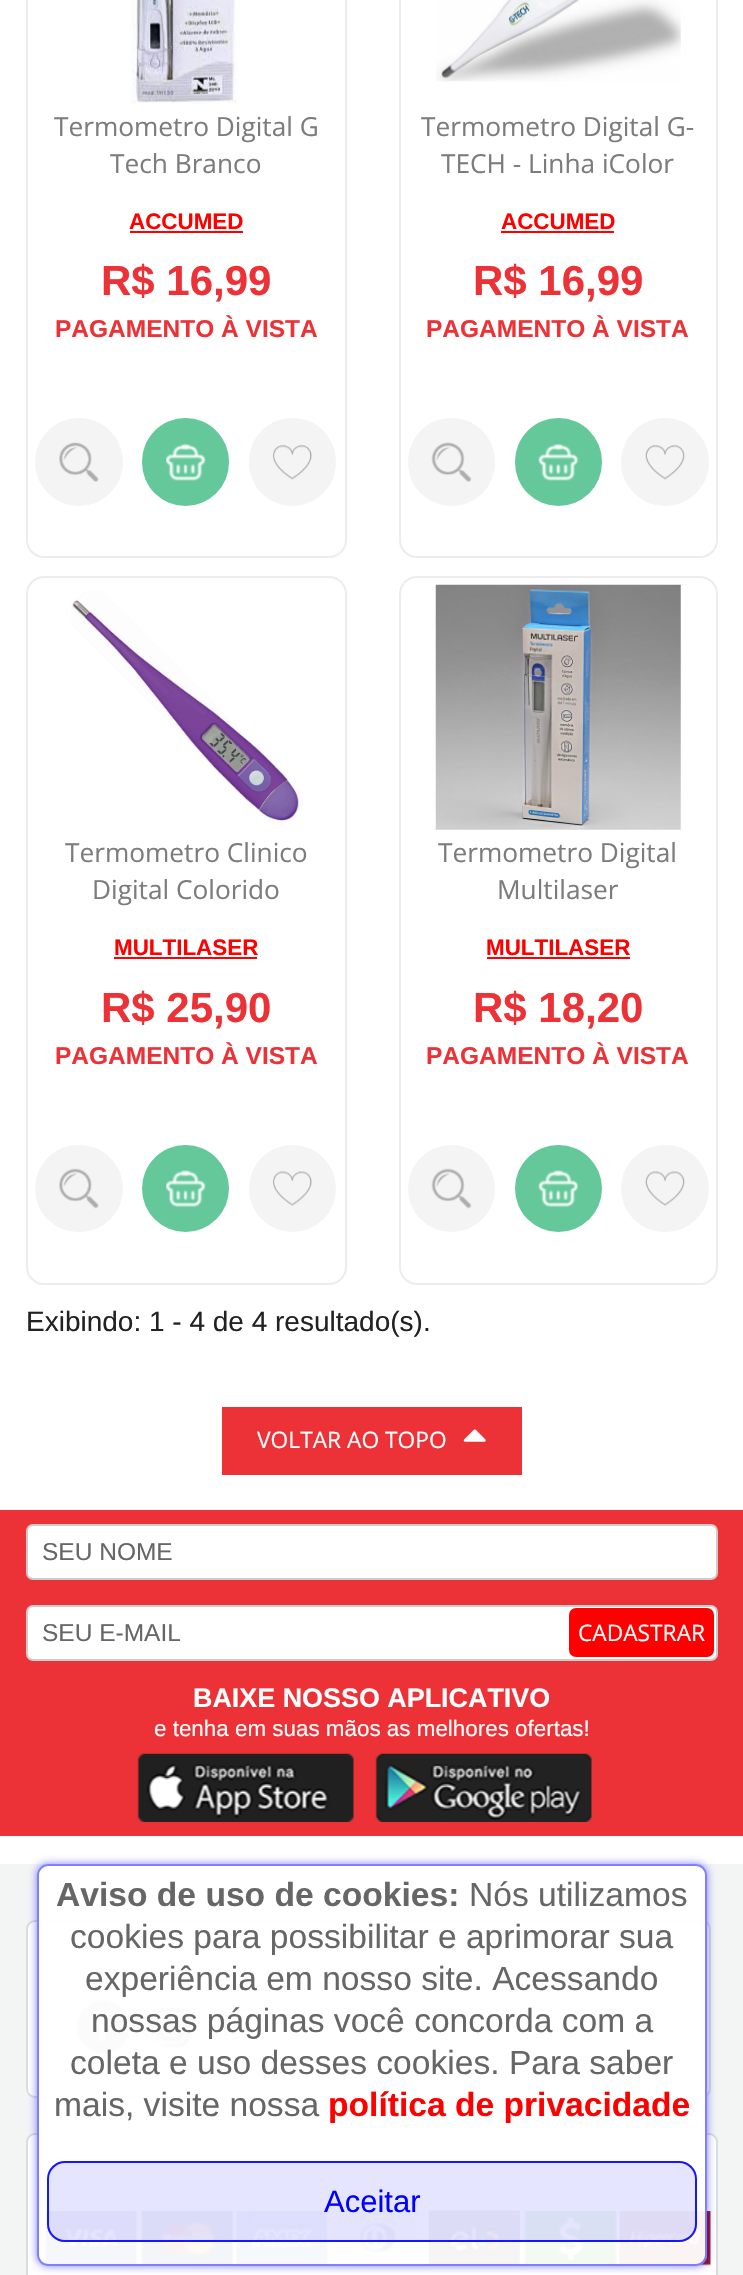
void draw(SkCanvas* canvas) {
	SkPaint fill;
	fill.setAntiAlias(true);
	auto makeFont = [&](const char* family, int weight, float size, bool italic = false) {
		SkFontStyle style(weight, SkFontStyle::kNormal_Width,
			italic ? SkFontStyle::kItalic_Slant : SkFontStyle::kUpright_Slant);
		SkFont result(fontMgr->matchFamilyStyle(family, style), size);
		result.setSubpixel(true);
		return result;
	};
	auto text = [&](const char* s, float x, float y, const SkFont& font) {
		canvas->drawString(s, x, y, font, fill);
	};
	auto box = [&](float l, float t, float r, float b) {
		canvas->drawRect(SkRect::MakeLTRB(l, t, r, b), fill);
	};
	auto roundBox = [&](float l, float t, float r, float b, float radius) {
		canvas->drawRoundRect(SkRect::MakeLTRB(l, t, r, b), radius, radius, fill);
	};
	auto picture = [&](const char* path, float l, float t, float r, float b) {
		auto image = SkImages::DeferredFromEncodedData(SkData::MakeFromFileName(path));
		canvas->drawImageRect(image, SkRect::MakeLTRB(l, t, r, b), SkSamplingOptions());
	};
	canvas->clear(0xFFFFFFFF);
	fill.setStyle(SkPaint::kStroke_Style);
	fill.setStrokeWidth(2);
	fill.setColor(0xFFEDEDED);
	canvas->drawRoundRect(SkRect::MakeLTRB(27, -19, 346, 557), 17, 17, fill);
	picture("image0.png", 130, 0, 239, 104);
	fill.setStyle(SkPaint::kFill_Style);
	fill.setColor(0xFFFF0000);
	box(130, 231, 243, 233);
	fill.setColor(0xFFF4F4F4);
	canvas->drawCircle(79, 462, 44, fill);
	picture("image1.png", 59, 442, 99, 482);
	fill.setColor(0xFF64C89B);
	roundBox(142, 418, 229, 506, 43.5f);
	picture("image2.png", 166, 444, 206, 481);
	fill.setColor(0xFFF4F4F4);
	roundBox(249, 418, 336, 506, 43.5f);
	picture("image3.png", 273, 445, 312, 480);
	fill.setStyle(SkPaint::kStroke_Style);
	fill.setColor(0xFFEDEDED);
	canvas->drawRoundRect(SkRect::MakeLTRB(400, -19, 717, 557), 17, 17, fill);
	picture("image4.png", 436, 0, 681, 82);
	fill.setStyle(SkPaint::kFill_Style);
	fill.setColor(0xFFFF0000);
	box(501, 231, 614, 233);
	fill.setColor(0xFFF4F4F4);
	roundBox(408, 418, 495, 506, 43.5f);
	picture("image5.png", 431, 442, 472, 482);
	fill.setColor(0xFF64C89B);
	roundBox(515, 418, 602, 506, 43.5f);
	picture("image6.png", 538, 444, 579, 481);
	fill.setColor(0xFFF4F4F4);
	canvas->drawCircle(665, 462, 44, fill);
	picture("image7.png", 645, 445, 685, 480);
	fill.setStyle(SkPaint::kStroke_Style);
	fill.setColor(0xFFEDEDED);
	canvas->drawRoundRect(SkRect::MakeLTRB(27, 577, 346, 1284), 17, 17, fill);
	picture("image8.png", 71, 591, 303, 826);
	fill.setStyle(SkPaint::kFill_Style);
	fill.setColor(0xFFFF0000);
	box(114, 957, 257, 959);
	fill.setColor(0xFFF4F4F4);
	roundBox(35, 1145, 123, 1232, 43.5f);
	picture("image9.png", 59, 1168, 99, 1209);
	fill.setColor(0xFF64C89B);
	canvas->drawCircle(185.5f, 1188.5f, 43.5f, fill);
	picture("image10.png", 166, 1170, 206, 1208);
	fill.setColor(0xFFF4F4F4);
	canvas->drawCircle(292.5f, 1188.5f, 43.5f, fill);
	picture("image11.png", 273, 1171, 312, 1206);
	fill.setStyle(SkPaint::kStroke_Style);
	fill.setColor(0xFFEDEDED);
	canvas->drawRoundRect(SkRect::MakeLTRB(400, 577, 717, 1284), 17, 17, fill);
	picture("image12.png", 435, 584, 681, 830);
	fill.setStyle(SkPaint::kFill_Style);
	fill.setColor(0xFFFF0000);
	box(487, 957, 630, 959);
	fill.setColor(0xFFF4F4F4);
	canvas->drawCircle(451.5f, 1188.5f, 43.5f, fill);
	picture("image13.png", 431, 1168, 472, 1209);
	fill.setColor(0xFF64C89B);
	canvas->drawCircle(558.5f, 1188.5f, 43.5f, fill);
	picture("image14.png", 538, 1170, 579, 1208);
	fill.setColor(0xFFF4F4F4);
	roundBox(621, 1145, 709, 1232, 43.5f);
	picture("image15.png", 645, 1171, 685, 1206);
	fill.setColor(0xFFEC3237);
	box(222, 1407, 522, 1475);
	picture("image16.png", 463, 1429, 486, 1442);
	box(0, 1510, 743, 1836);
	fill.setColor(0xFFFFFFFF);
	canvas->drawRoundRect(SkRect::MakeLTRB(27, 1525, 717, 1579), 6, 6, fill);
	fill.setStyle(SkPaint::kStroke_Style);
	fill.setColor(0xFFCCCCCC);
	canvas->drawRoundRect(SkRect::MakeLTRB(27, 1525, 717, 1579), 6, 6, fill);
	fill.setStyle(SkPaint::kFill_Style);
	fill.setColor(0xFFFFFFFF);
	canvas->drawRoundRect(SkRect::MakeLTRB(27, 1606, 717, 1660), 6, 6, fill);
	fill.setStyle(SkPaint::kStroke_Style);
	fill.setColor(0xFFCCCCCC);
	canvas->drawRoundRect(SkRect::MakeLTRB(27, 1606, 717, 1660), 6, 6, fill);
	fill.setStyle(SkPaint::kFill_Style);
	fill.setColor(0xFFFF0000);
	roundBox(569, 1608, 714, 1657, 7);
	picture("image17.png", 137, 1753, 354, 1822);
	picture("image18.png", 375, 1753, 592, 1822);
	fill.setColor(0xFFF3F4F4);
	box(0, 1864, 743, 2275);
	fill.setColor(0xFFFFFFFF);
	canvas->drawRoundRect(SkRect::MakeLTRB(27, 1921, 710, 2097), 8, 8, fill);
	fill.setStyle(SkPaint::kStroke_Style);
	fill.setColor(0xFFDADDDD);
	canvas->drawRoundRect(SkRect::MakeLTRB(27, 1921, 710, 2097), 8, 8, fill);
	picture("image19.png", 76, 2000, 131, 2054);
	picture("image20.png", 146, 2005, 192, 2050);
	fill.setStyle(SkPaint::kFill_Style);
	fill.setColor(0xFFFFFFFF);
	canvas->drawRoundRect(SkRect::MakeLTRB(27, 2134, 717, 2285), 8, 8, fill);
	fill.setStyle(SkPaint::kStroke_Style);
	fill.setColor(0xFFDADDDD);
	canvas->drawRoundRect(SkRect::MakeLTRB(27, 2134, 717, 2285), 8, 8, fill);
	picture("image21.png", 46, 2211, 137, 2266);
	picture("image22.png", 141, 2211, 234, 2266);
	picture("image23.png", 235, 2211, 328, 2266);
	picture("image24.png", 332, 2211, 424, 2266);
	picture("image25.png", 428, 2210, 520, 2266);
	picture("image26.png", 524, 2211, 617, 2266);
	picture("image27.png", 619, 2211, 711, 2266);
	canvas->save();
	canvas->clipPath(SkPathBuilder(SkPathFillType::kEvenOdd).moveTo(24, 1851).lineTo(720, 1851).lineTo(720, 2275).lineTo(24, 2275).close().moveTo(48, 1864).lineTo(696, 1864).cubicTo(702, 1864, 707, 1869, 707, 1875).lineTo(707, 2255).cubicTo(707, 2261, 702, 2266, 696, 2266).lineTo(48, 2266).cubicTo(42, 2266, 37, 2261, 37, 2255).lineTo(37, 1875).cubicTo(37, 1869, 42, 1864, 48, 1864).close().detach(), true);
	fill.setStyle(SkPaint::kFill_Style);
	fill.setColor(0x800000FF);
	fill.setMaskFilter(SkMaskFilter::MakeBlur(kNormal_SkBlurStyle, 4));
	canvas->drawRoundRect(SkRect::MakeLTRB(37, 1864, 707, 2266), 11, 11, fill);
	fill.setMaskFilter(nullptr);
	canvas->restore();
	fill.setColor(0xF2FFFFFF);
	roundBox(37, 1864, 707, 2266, 11);
	fill.setStyle(SkPaint::kStroke_Style);
	fill.setColor(0x800000FF);
	canvas->drawRoundRect(SkRect::MakeLTRB(38, 1865, 706, 2265), 10, 10, fill);
	fill.setStyle(SkPaint::kFill_Style);
	fill.setColor(0x1A0000FF);
	roundBox(47, 2161, 697, 2242, 18);
	fill.setStyle(SkPaint::kStroke_Style);
	fill.setColor(0xE60000FF);
	canvas->drawRoundRect(SkRect::MakeLTRB(48, 2162, 696, 2241), 17, 17, fill);
	auto font1 = makeFont("Open Sans", 400, 26.25f);
	fill.setStyle(SkPaint::kFill_Style);
	fill.setColor(0xFF7C7C7C);
	text("Termometro Digital G", 54, 136, font1);
	text("Tech Branco", 110, 173, font1);
	auto font2 = makeFont("Liberation Sans", 700, 22.4f);
	fill.setColor(0xFFFF0000);
	text("ACCUMED", 129, 229, font2);
	auto font3 = makeFont("Liberation Sans", 700, 42);
	fill.setColor(0xFFEC3237);
	text("R$ 16,99", 101, 295, font3);
	auto font4 = makeFont("Liberation Sans", 700, 24.5f);
	text("PAGAMENTO À VISTA", 55, 337, font4);
	fill.setColor(0xFF7C7C7C);
	text("Termometro Digital G-", 421, 136, font1);
	text("TECH - Linha iColor", 441, 173, font1);
	fill.setColor(0xFFFF0000);
	text("ACCUMED", 501, 229, font2);
	fill.setColor(0xFFEC3237);
	text("R$ 16,99", 473, 295, font3);
	text("PAGAMENTO À VISTA", 426, 337, font4);
	fill.setColor(0xFF7C7C7C);
	text("Termometro Clinico", 65, 862, font1);
	text("Digital Colorido", 92, 899, font1);
	fill.setColor(0xFFFF0000);
	text("MULTILASER", 114, 955, font2);
	fill.setColor(0xFFEC3237);
	text("R$ 25,90", 101, 1022, font3);
	text("PAGAMENTO À VISTA", 55, 1064, font4);
	fill.setColor(0xFF7C7C7C);
	text("Termometro Digital", 438, 862, font1);
	text("Multilaser", 497, 899, font1);
	fill.setColor(0xFFFF0000);
	text("MULTILASER", 486, 955, font2);
	fill.setColor(0xFFEC3237);
	text("R$ 18,20", 473, 1022, font3);
	text("PAGAMENTO À VISTA", 426, 1064, font4);
	auto font5 = makeFont("Liberation Sans", 400, 28);
	fill.setColor(0xFF222222);
	text("Exibindo: 1 - 4 de 4 resultado(s).", 26, 1331, font5);
	auto font6 = makeFont("Open Sans", 400, 22.75f);
	fill.setColor(0xFFFFFFFF);
	text("VOLTAR AO TOPO", 257, 1448, font6);
	auto font7 = makeFont("Liberation Sans", 400, 24.5f);
	fill.setColor(0xFF666666);
	text("SEU NOME", 42, 1560, font7);
	text("SEU E-MAIL", 42, 1641, font7);
	fill.setColor(0xFFFFFFFF);
	text("CADASTRAR", 578, 1641, font6);
	auto font8 = makeFont("Liberation Sans", 700, 26.9f);
	text("BAIXE NOSSO APLICATIVO", 193, 1707, font8);
	auto font9 = makeFont("Liberation Sans", 400, 22.4f);
	text("e tenha em suas mãos as melhores ofertas!", 154, 1736, font9);
	auto font10 = makeFont("Liberation Sans", 700, 33.6f);
	fill.setColor(0xFF666666);
	text("Aviso de uso de cookies:", 56, 1906, font10);
	auto font11 = makeFont("Liberation Sans", 400, 33.6f);
	text("Nós utilizamos", 469, 1906, font11);
	text("cookies para possibilitar e aprimorar sua", 70, 1948, font11);
	text("experiência em nosso site. Acessando", 85, 1990, font11);
	text("nossas páginas você concorda com a", 91, 2032, font11);
	text("coleta e uso desses cookies. Para saber", 70, 2074, font11);
	text("mais, visite nossa", 54, 2116, font11);
	fill.setColor(0xFFFF0000);
	text("política de privacidade", 328, 2116, font10);
	auto font12 = makeFont("Liberation Sans", 400, 31);
	fill.setColor(0xFF0000FF);
	text("Aceitar", 324, 2212, font12);
}
